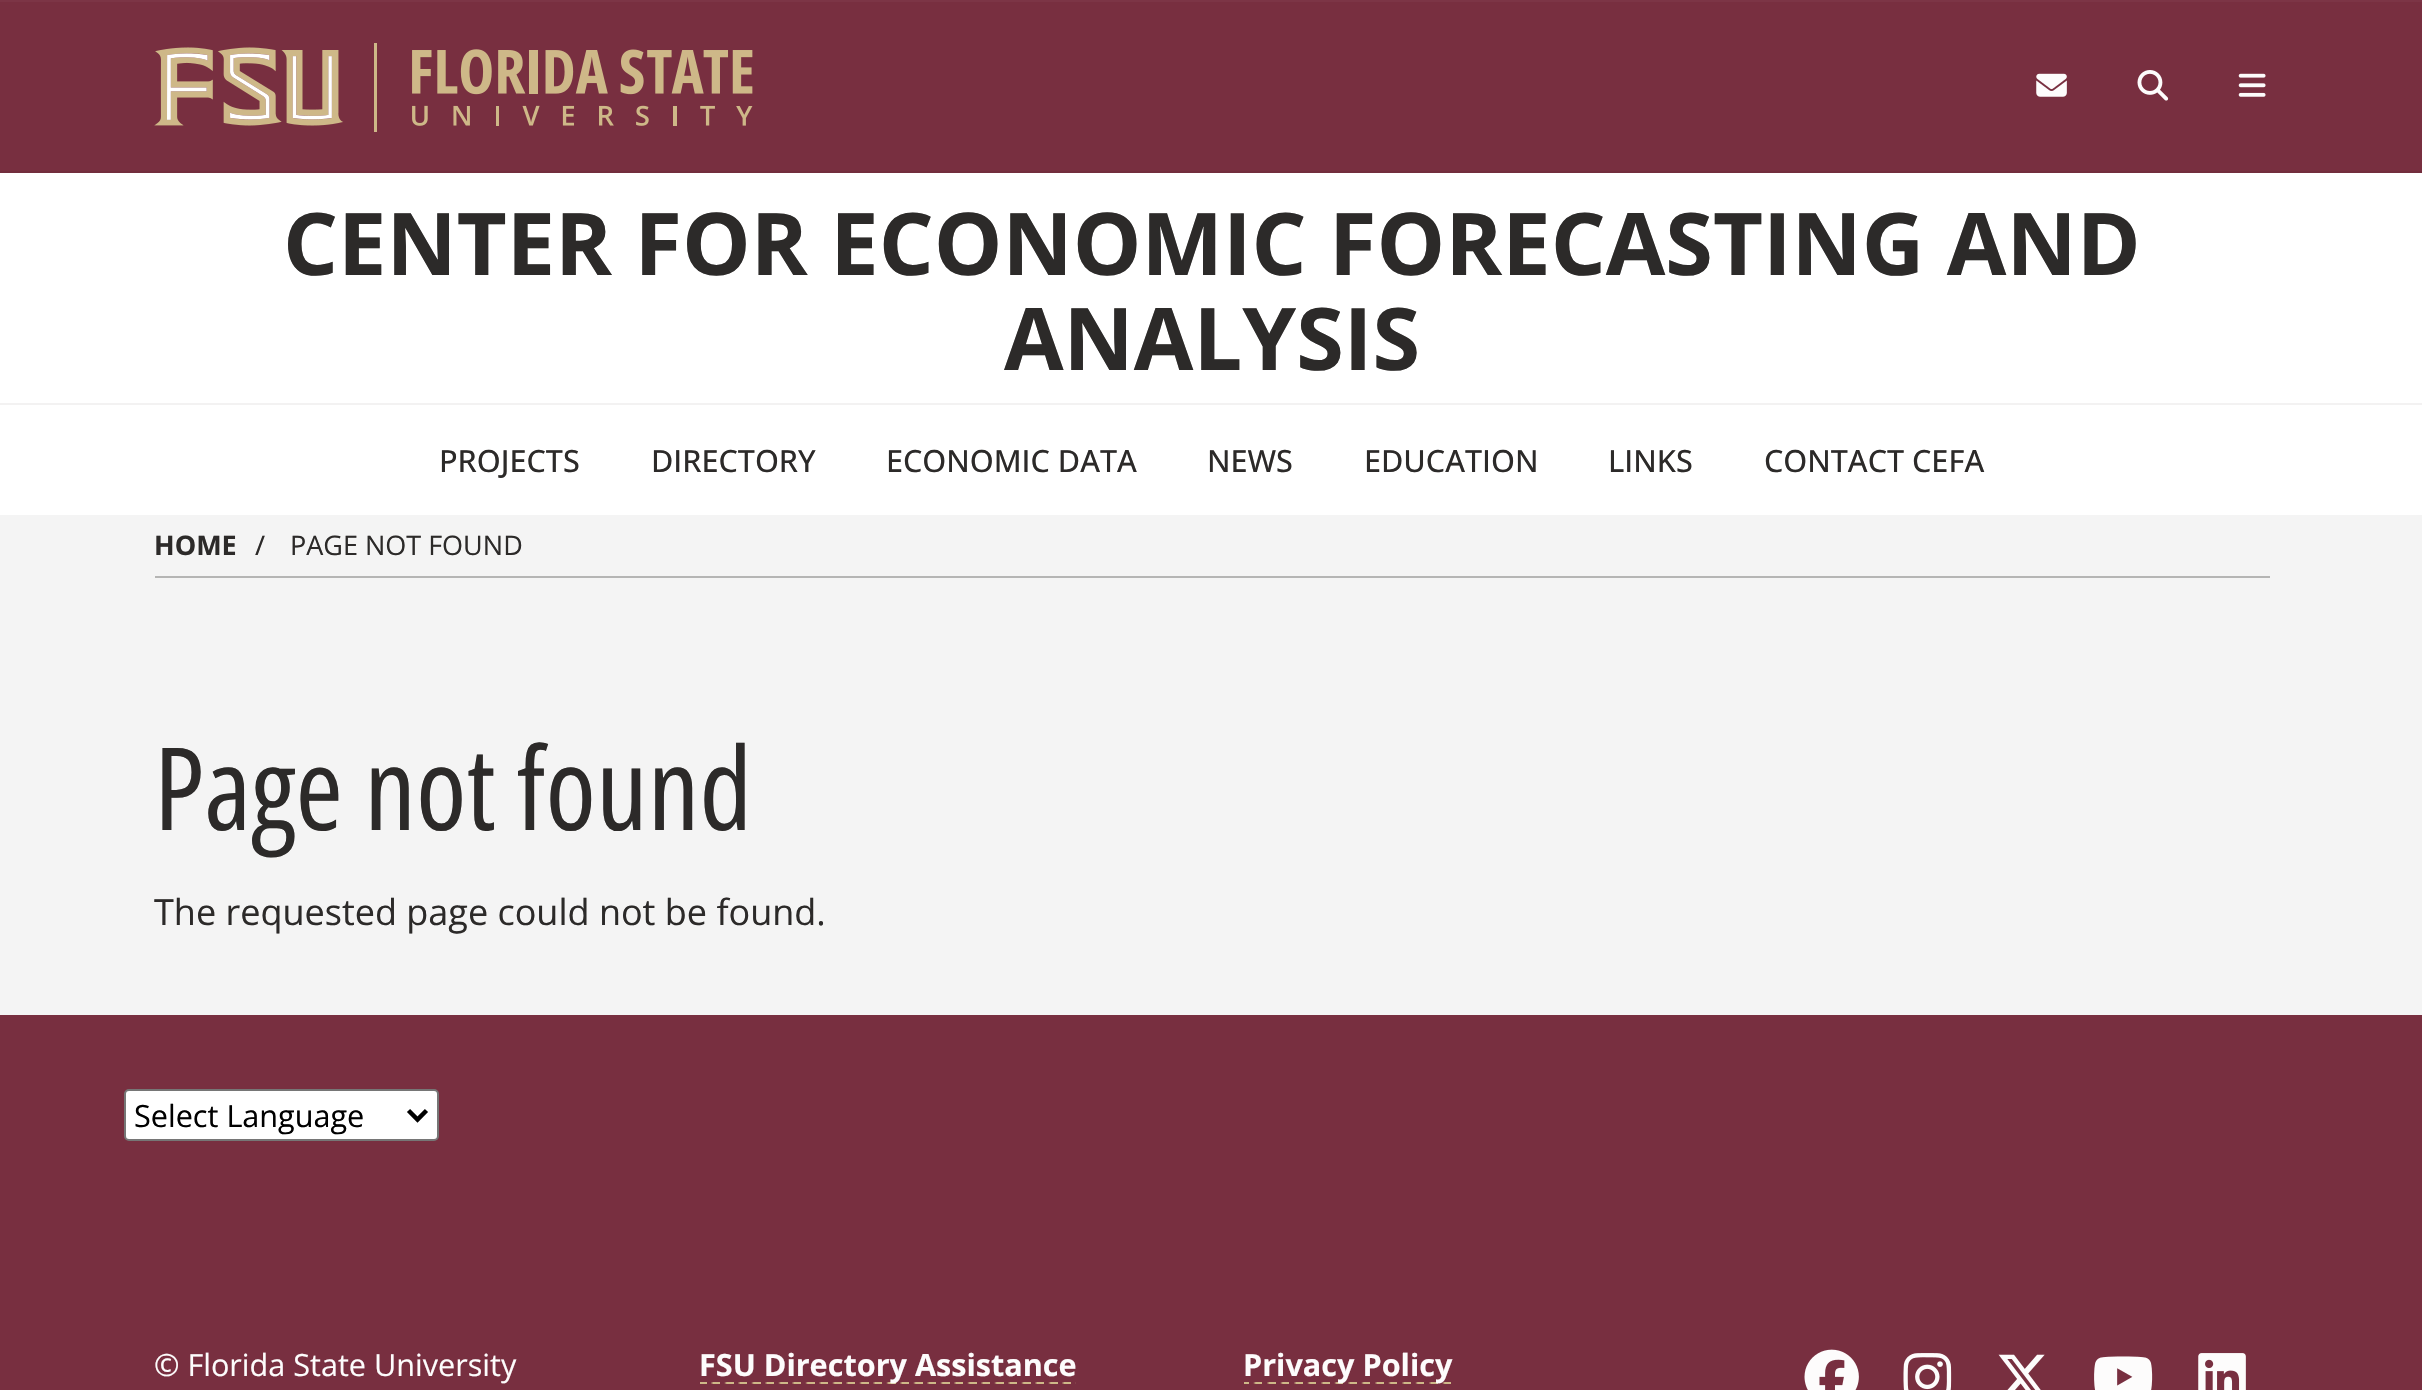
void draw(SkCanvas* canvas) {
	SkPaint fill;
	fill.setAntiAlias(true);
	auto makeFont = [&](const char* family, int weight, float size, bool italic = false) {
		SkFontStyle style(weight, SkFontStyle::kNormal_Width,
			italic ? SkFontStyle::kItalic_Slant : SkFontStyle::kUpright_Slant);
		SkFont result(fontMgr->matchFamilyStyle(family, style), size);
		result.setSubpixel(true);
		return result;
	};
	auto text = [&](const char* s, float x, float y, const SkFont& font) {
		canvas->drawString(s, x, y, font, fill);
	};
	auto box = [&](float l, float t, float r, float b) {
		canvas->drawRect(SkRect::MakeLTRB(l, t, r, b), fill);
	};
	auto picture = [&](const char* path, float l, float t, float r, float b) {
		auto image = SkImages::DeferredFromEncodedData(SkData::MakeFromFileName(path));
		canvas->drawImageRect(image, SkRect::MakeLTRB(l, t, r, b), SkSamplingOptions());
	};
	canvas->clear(0xFF782F40);
	fill.setColor(0xFF7C3546);
	box(0, 0, 2422, 2);
	fill.setColor(0xFF722D3D);
	box(0, 171, 2422, 173);
	picture("image0.png", 154, 43, 753, 132);
	picture("image1.png", 2036, 73, 2067, 97);
	picture("image2.png", 2137, 70, 2169, 101);
	picture("image3.png", 2238, 73, 2266, 97);
	fill.setColor(0xFFFFFFFF);
	box(0, 173, 2422, 403);
	fill.setColor(0xFFF3F2F2);
	box(0, 403, 2422, 405);
	fill.setColor(0xFFFFFFFF);
	box(0, 405, 2422, 515);
	fill.setColor(0xFFF4F4F4);
	box(0, 515, 2422, 1015);
	fill.setColor(0xFFB5B5B4);
	box(155, 576, 2270, 578);
	fill.setColor(0xFFFFFFFF);
	canvas->drawRoundRect(SkRect::MakeLTRB(125, 1090, 438, 1140), 4, 4, fill);
	fill.setStyle(SkPaint::kStroke_Style);
	fill.setStrokeWidth(2);
	fill.setColor(0xFF767676);
	canvas->drawRoundRect(SkRect::MakeLTRB(125, 1090, 438, 1140), 4, 4, fill);
	fill.setStrokeWidth(4.5f);
	fill.setColor(0xFF000000);
	canvas->drawPath(SkPathBuilder().moveTo(408.5f, 1110.5f).lineTo(417.5f, 1119.5f).lineTo(426.5f, 1110.5f).detach(), fill);
	picture("image4.png", 700, 1382, 1076, 1384);
	fill.setStyle(SkPaint::kFill_Style);
	{
		const SkColor colors[] = {0xFF782F40, 0xFFCEB888};
		const float stops[] = {0.4f, 0.6f};
		const SkPoint ends[] = {{1234, 1383}, {1248, 1383}};
		fill.setShader(SkGradientShader::MakeLinear(ends, colors, stops, 2, SkTileMode::kClamp));
		fill.setAlpha(255);
	}
	box(1244, 1382, 1249, 1384);
	{
		const SkColor colors[] = {0xFF782F40, 0xFFCEB888};
		const float stops[] = {0.4f, 0.6f};
		const SkPoint ends[] = {{1248, 1383}, {1261, 1383}};
		fill.setShader(SkGradientShader::MakeLinear(ends, colors, stops, 2, SkTileMode::kClamp));
		fill.setAlpha(255);
	}
	box(1249, 1382, 1262, 1384);
	{
		const SkColor colors[] = {0xFF782F40, 0xFFCEB888};
		const float stops[] = {0.4f, 0.6f};
		const SkPoint ends[] = {{1261, 1383}, {1275, 1383}};
		fill.setShader(SkGradientShader::MakeLinear(ends, colors, stops, 2, SkTileMode::kClamp));
		fill.setAlpha(255);
	}
	box(1262, 1382, 1276, 1384);
	{
		const SkColor colors[] = {0xFF782F40, 0xFFCEB888};
		const float stops[] = {0.4f, 0.6f};
		const SkPoint ends[] = {{1275, 1383}, {1288, 1383}};
		fill.setShader(SkGradientShader::MakeLinear(ends, colors, stops, 2, SkTileMode::kClamp));
		fill.setAlpha(255);
	}
	box(1276, 1382, 1289, 1384);
	{
		const SkColor colors[] = {0xFF782F40, 0xFFCEB888};
		const float stops[] = {0.4f, 0.6f};
		const SkPoint ends[] = {{1288, 1383}, {1302, 1383}};
		fill.setShader(SkGradientShader::MakeLinear(ends, colors, stops, 2, SkTileMode::kClamp));
		fill.setAlpha(255);
	}
	box(1289, 1382, 1303, 1384);
	{
		const SkColor colors[] = {0xFF782F40, 0xFFCEB888};
		const float stops[] = {0.4f, 0.6f};
		const SkPoint ends[] = {{1302, 1383}, {1315, 1383}};
		fill.setShader(SkGradientShader::MakeLinear(ends, colors, stops, 2, SkTileMode::kClamp));
		fill.setAlpha(255);
	}
	box(1303, 1382, 1316, 1384);
	{
		const SkColor colors[] = {0xFF782F40, 0xFFCEB888};
		const float stops[] = {0.4f, 0.6f};
		const SkPoint ends[] = {{1315, 1383}, {1329, 1383}};
		fill.setShader(SkGradientShader::MakeLinear(ends, colors, stops, 2, SkTileMode::kClamp));
		fill.setAlpha(255);
	}
	box(1316, 1382, 1330, 1384);
	{
		const SkColor colors[] = {0xFF782F40, 0xFFCEB888};
		const float stops[] = {0.4f, 0.6f};
		const SkPoint ends[] = {{1329, 1383}, {1342, 1383}};
		fill.setShader(SkGradientShader::MakeLinear(ends, colors, stops, 2, SkTileMode::kClamp));
		fill.setAlpha(255);
	}
	box(1330, 1382, 1343, 1384);
	{
		const SkColor colors[] = {0xFF782F40, 0xFFCEB888};
		const float stops[] = {0.4f, 0.6f};
		const SkPoint ends[] = {{1342, 1383}, {1356, 1383}};
		fill.setShader(SkGradientShader::MakeLinear(ends, colors, stops, 2, SkTileMode::kClamp));
		fill.setAlpha(255);
	}
	box(1343, 1382, 1357, 1384);
	{
		const SkColor colors[] = {0xFF782F40, 0xFFCEB888};
		const float stops[] = {0.4f, 0.6f};
		const SkPoint ends[] = {{1356, 1383}, {1369, 1383}};
		fill.setShader(SkGradientShader::MakeLinear(ends, colors, stops, 2, SkTileMode::kClamp));
		fill.setAlpha(255);
	}
	box(1357, 1382, 1370, 1384);
	{
		const SkColor colors[] = {0xFF782F40, 0xFFCEB888};
		const float stops[] = {0.4f, 0.6f};
		const SkPoint ends[] = {{1369, 1383}, {1383, 1383}};
		fill.setShader(SkGradientShader::MakeLinear(ends, colors, stops, 2, SkTileMode::kClamp));
		fill.setAlpha(255);
	}
	box(1370, 1382, 1384, 1384);
	{
		const SkColor colors[] = {0xFF782F40, 0xFFCEB888};
		const float stops[] = {0.4f, 0.6f};
		const SkPoint ends[] = {{1383, 1383}, {1396, 1383}};
		fill.setShader(SkGradientShader::MakeLinear(ends, colors, stops, 2, SkTileMode::kClamp));
		fill.setAlpha(255);
	}
	box(1384, 1382, 1397, 1384);
	{
		const SkColor colors[] = {0xFF782F40, 0xFFCEB888};
		const float stops[] = {0.4f, 0.6f};
		const SkPoint ends[] = {{1396, 1383}, {1410, 1383}};
		fill.setShader(SkGradientShader::MakeLinear(ends, colors, stops, 2, SkTileMode::kClamp));
		fill.setAlpha(255);
	}
	box(1397, 1382, 1411, 1384);
	{
		const SkColor colors[] = {0xFF782F40, 0xFFCEB888};
		const float stops[] = {0.4f, 0.6f};
		const SkPoint ends[] = {{1410, 1383}, {1423, 1383}};
		fill.setShader(SkGradientShader::MakeLinear(ends, colors, stops, 2, SkTileMode::kClamp));
		fill.setAlpha(255);
	}
	box(1411, 1382, 1424, 1384);
	{
		const SkColor colors[] = {0xFF782F40, 0xFFCEB888};
		const float stops[] = {0.4f, 0.6f};
		const SkPoint ends[] = {{1423, 1383}, {1437, 1383}};
		fill.setShader(SkGradientShader::MakeLinear(ends, colors, stops, 2, SkTileMode::kClamp));
		fill.setAlpha(255);
	}
	box(1424, 1382, 1438, 1384);
	{
		const SkColor colors[] = {0xFF782F40, 0xFFCEB888};
		const float stops[] = {0.4f, 0.6f};
		const SkPoint ends[] = {{1437, 1383}, {1450, 1383}};
		fill.setShader(SkGradientShader::MakeLinear(ends, colors, stops, 2, SkTileMode::kClamp));
		fill.setAlpha(255);
	}
	box(1438, 1382, 1451, 1384);
	picture("image5.png", 1804, 1349, 1859, 1390);
	picture("image6.png", 1903, 1353, 1952, 1390);
	picture("image7.png", 1998, 1354, 2045, 1390);
	picture("image8.png", 2094, 1356, 2153, 1390);
	picture("image9.png", 2198, 1353, 2246, 1390);
	auto font1 = makeFont("Open Sans", 700, 86.4f);
	fill.setShader(nullptr);
	fill.setColor(0xFF2C2A29);
	text("CENTER FOR ECONOMIC FORECASTING AND", 283, 275, font1);
	text("ANALYSIS", 1004, 370, font1);
	auto font2 = makeFont("Open Sans", 500, 30.6f);
	text("PROJECTS", 439, 472, font2);
	text("DIRECTORY", 651, 472, font2);
	text("ECONOMIC DATA", 886, 472, font2);
	text("NEWS", 1207, 472, font2);
	text("EDUCATION", 1364, 472, font2);
	text("LINKS", 1608, 472, font2);
	text("CONTACT CEFA", 1764, 472, font2);
	auto font3 = makeFont("Open Sans", 700, 27);
	text("HOME", 154, 555, font3);
	auto font4 = makeFont("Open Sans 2", 400, 27);
	text("/", 255, 555, font4);
	auto font5 = makeFont("Open Sans", 400, 27);
	text("PAGE NOT FOUND", 290, 555, font5);
	auto font6 = makeFont("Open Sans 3", 400, 114.75f);
	text("Page not found", 154, 830, font6);
	auto font7 = makeFont("Open Sans", 400, 36);
	text("The requested page could not be found.", 154, 925, font7);
	auto font8 = makeFont("Open Sans", 400, 30.6f);
	fill.setColor(0xFF000000);
	text("Select Language", 134, 1127, font8);
	fill.setColor(0xFFFDFCFC);
	text("© Florida State University", 154, 1376, font8);
	auto font9 = makeFont("Open Sans", 700, 30.6f);
	text("FSU Directory Assistance", 699, 1376, font9);
	text("Privacy Policy", 1243, 1376, font9);
}
